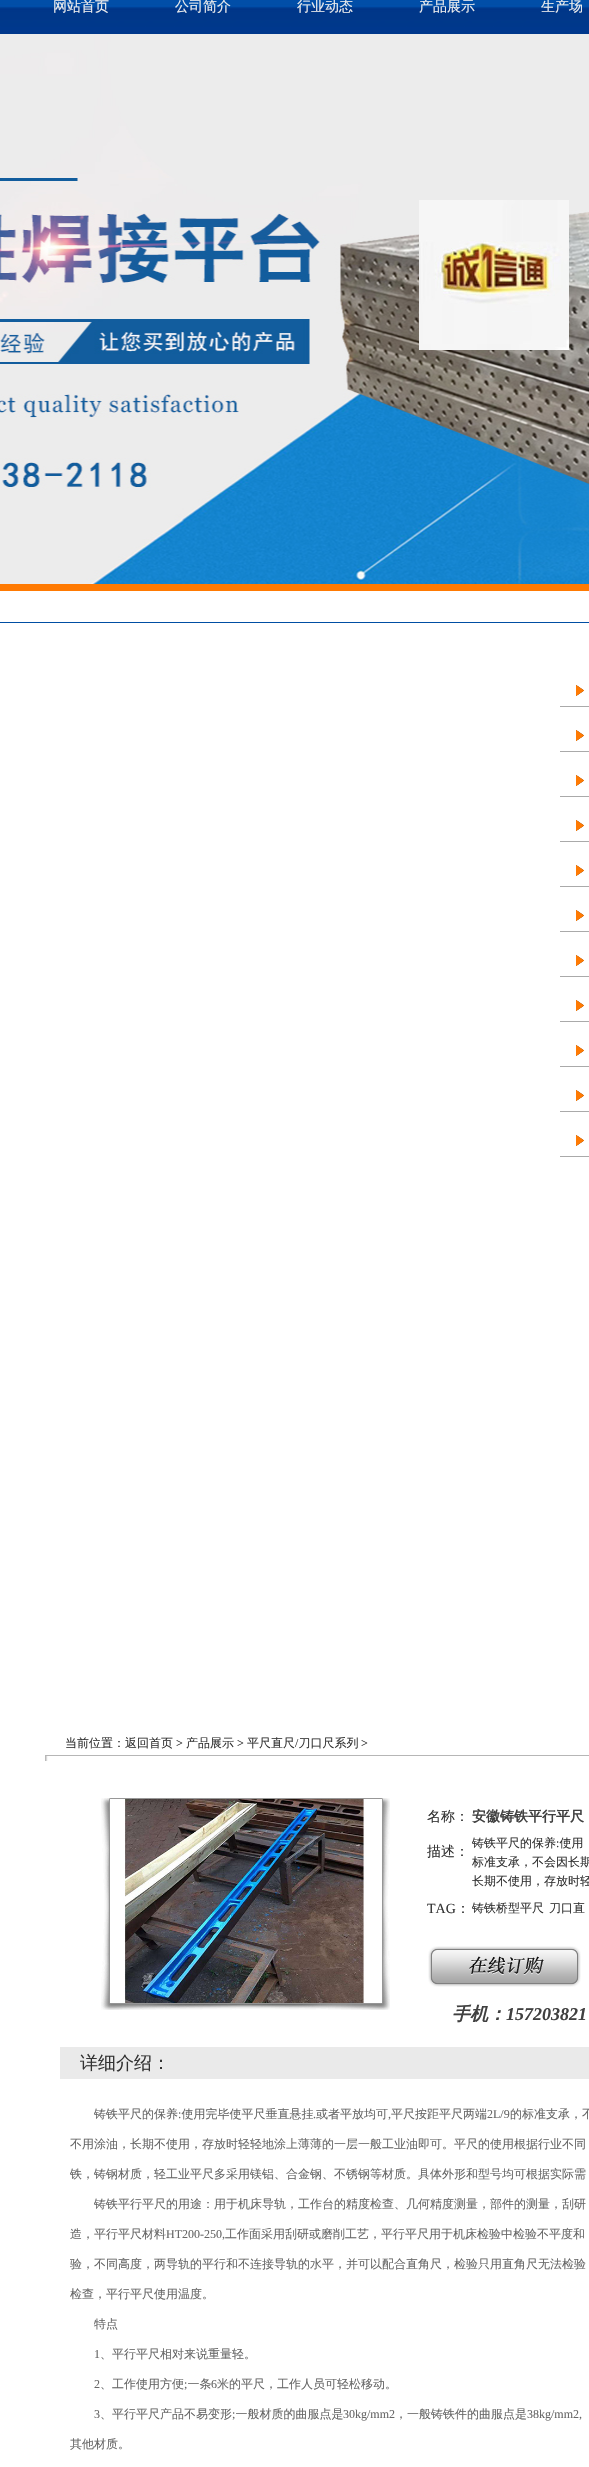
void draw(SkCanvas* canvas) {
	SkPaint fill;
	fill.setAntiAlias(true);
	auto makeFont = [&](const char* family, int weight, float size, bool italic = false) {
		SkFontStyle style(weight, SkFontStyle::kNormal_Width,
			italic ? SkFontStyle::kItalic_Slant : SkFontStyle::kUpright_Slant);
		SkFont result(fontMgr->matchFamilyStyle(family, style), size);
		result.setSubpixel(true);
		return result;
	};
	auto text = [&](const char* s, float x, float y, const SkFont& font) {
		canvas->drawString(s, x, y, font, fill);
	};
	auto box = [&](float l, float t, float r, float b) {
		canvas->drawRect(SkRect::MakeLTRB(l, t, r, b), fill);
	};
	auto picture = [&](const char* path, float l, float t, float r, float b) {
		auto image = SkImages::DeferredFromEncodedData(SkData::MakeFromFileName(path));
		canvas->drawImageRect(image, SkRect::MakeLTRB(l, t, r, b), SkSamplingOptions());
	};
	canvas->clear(0xFFFFFFFF);
	picture("image0.png", 0, 0, 589, 34);
	picture("image1.png", 0, 34, 589, 584);
	picture("image2.png", 419, 200, 569, 350);
	picture("image3.png", 0, 584, 589, 623);
	picture("image4.png", 560, 685, 589, 707);
	picture("image4.png", 560, 730, 589, 752);
	picture("image4.png", 560, 775, 589, 797);
	picture("image4.png", 560, 820, 589, 842);
	picture("image4.png", 560, 865, 589, 887);
	picture("image4.png", 560, 910, 589, 932);
	picture("image4.png", 560, 955, 589, 977);
	picture("image4.png", 560, 1000, 589, 1022);
	picture("image4.png", 560, 1045, 589, 1067);
	picture("image4.png", 560, 1090, 589, 1112);
	picture("image4.png", 560, 1135, 589, 1157);
	picture("image5.png", 45, 1755, 589, 1761);
	picture("image6.png", 101, 1798, 390, 2010);
	picture("image7.png", 110, 1799, 382, 2003);
	picture("image8.png", 428, 1946, 581, 1987);
	fill.setColor(0xFFEAEAEA);
	box(60, 2047, 589, 2079);
	auto font1 = makeFont("WenQuanYi Zen Hei", 500, 14);
	fill.setColor(0xFFEEEEEE);
	text("网站首页", 53, 11, font1);
	text("公司简介", 175, 11, font1);
	text("行业动态", 297, 11, font1);
	text("产品展示", 419, 11, font1);
	text("生产场", 541, 11, font1);
	auto font2 = makeFont("WenQuanYi Zen Hei", 500, 12);
	fill.setColor(0xFF333333);
	text("当前位置：返回首页", 65, 1747, font2);
	text("产品展示", 186, 1747, font2);
	text("平尺直尺 刀口尺系列", 247, 1747, font2);
	auto font3 = makeFont("Liberation Serif", 400, 12);
	text(">", 176, 1747, font3);
	text(">", 237, 1747, font3);
	text("/", 295, 1747, font3);
	text(">", 361, 1747, font3);
	text("名称：", 427, 1821, font1);
	auto font4 = makeFont("WenQuanYi Zen Hei", 700, 14);
	fill.setColor(0xFF404040);
	text("安徽铸铁平行平尺", 472, 1821, font4);
	fill.setColor(0xFF333333);
	text("描述：", 427, 1856, font1);
	text("铸铁平尺的保养 使用", 472, 1847, font2);
	text(":", 556, 1847, font3);
	text("标准支承，不会因长期", 472, 1866, font2);
	text("长期不使用，存放时轻", 472, 1885, font2);
	auto font5 = makeFont("Liberation Serif", 400, 14);
	text("TAG", 427, 1913, font5);
	text("：", 456, 1913, font1);
	text("铸铁桥型平尺", 472, 1912, font2);
	text("刀口直", 549, 1912, font2);
	auto font6 = makeFont("WenQuanYi Zen Hei", 700, 18, true);
	fill.setColor(0xFF404040);
	text("手机：", 452, 2020, font6);
	auto font7 = makeFont("Liberation Serif", 700, 18, true);
	text("157203821", 506, 2020, font7);
	auto font8 = makeFont("WenQuanYi Zen Hei", 500, 18);
	fill.setColor(0xFF333333);
	text("详细介绍：", 80, 2069, font8);
	fill.setColor(0xFF666666);
	text("铸铁平尺的保养 使用完毕使平尺垂直悬挂", 94, 2118, font2);
	text("或者平放均可", 316, 2118, font2);
	text("平尺按距平尺两端", 391, 2118, font2);
	text("2L/9", 487, 2118, font3);
	text("的标准支承，不", 510, 2118, font2);
	text(":", 178, 2118, font3);
	text(".", 313, 2118, font3);
	text(",", 388, 2118, font3);
	text("不用涂油，长期不使用，存放时轻轻地涂上薄薄的一层一般工业油即可。平尺的使用根据行业不同", 70, 2148, font2);
	text("铁，铸钢材质，轻工业平尺多采用镁铝、合金钢、不锈钢等材质。具体外形和型号均可根据实际需", 70, 2178, font2);
	text("铸铁平行平尺的用途：用于机床导轨，工作台的精度检查、几何精度测量，部件的测量，刮研", 94, 2208, font2);
	text("造，平行平尺材料", 70, 2238, font2);
	text("HT200-250,", 166, 2238, font3);
	text("工作面采用刮研或磨削工艺，平行平尺用于机床检验中检验不平度和", 225, 2238, font2);
	text("验，不同高度，两导轨的平行和不连接导轨的水平，并可以配合直角尺，检验只用直角尺无法检验", 70, 2268, font2);
	text("检查，平行平尺使用温度。", 70, 2298, font2);
	text("特点", 94, 2328, font2);
	text("1", 94, 2358, font3);
	text("、平行平尺相对来说重量轻。", 100, 2358, font2);
	text("2", 94, 2388, font3);
	text("、工作使用方便 一条", 100, 2388, font2);
	text("6", 211, 2388, font3);
	text("米的平尺，工作人员可轻松移动。", 217, 2388, font2);
	text(";", 184, 2388, font3);
	text("3", 94, 2418, font3);
	text("、平行平尺产品不易变形 一般材质的曲服点是", 100, 2418, font2);
	text("30kg/mm2", 343, 2418, font3);
	text("，一般铸铁件的曲服点是", 395, 2418, font2);
	text("38kg/mm2,", 527, 2418, font3);
	text(";", 232, 2418, font3);
	text("其他材质。", 70, 2448, font2);
}
